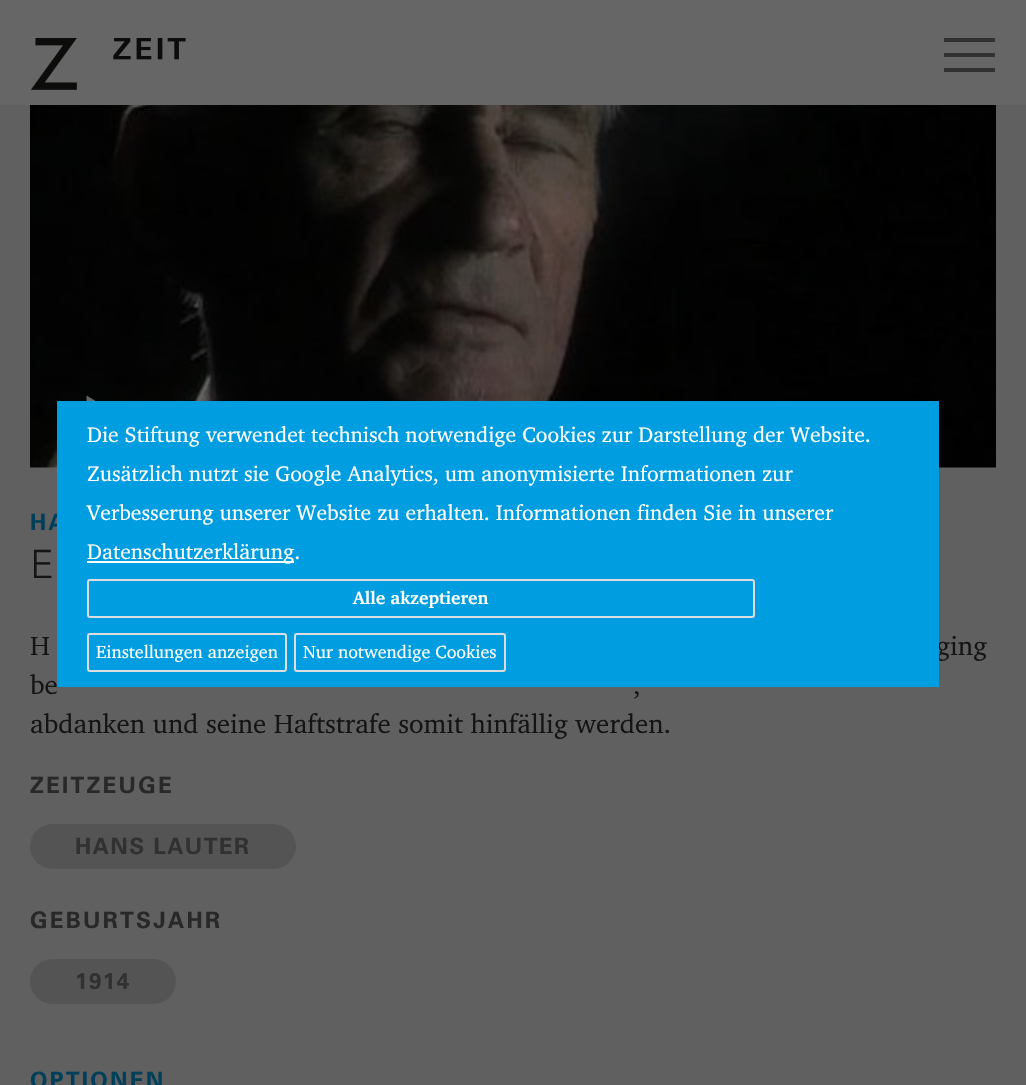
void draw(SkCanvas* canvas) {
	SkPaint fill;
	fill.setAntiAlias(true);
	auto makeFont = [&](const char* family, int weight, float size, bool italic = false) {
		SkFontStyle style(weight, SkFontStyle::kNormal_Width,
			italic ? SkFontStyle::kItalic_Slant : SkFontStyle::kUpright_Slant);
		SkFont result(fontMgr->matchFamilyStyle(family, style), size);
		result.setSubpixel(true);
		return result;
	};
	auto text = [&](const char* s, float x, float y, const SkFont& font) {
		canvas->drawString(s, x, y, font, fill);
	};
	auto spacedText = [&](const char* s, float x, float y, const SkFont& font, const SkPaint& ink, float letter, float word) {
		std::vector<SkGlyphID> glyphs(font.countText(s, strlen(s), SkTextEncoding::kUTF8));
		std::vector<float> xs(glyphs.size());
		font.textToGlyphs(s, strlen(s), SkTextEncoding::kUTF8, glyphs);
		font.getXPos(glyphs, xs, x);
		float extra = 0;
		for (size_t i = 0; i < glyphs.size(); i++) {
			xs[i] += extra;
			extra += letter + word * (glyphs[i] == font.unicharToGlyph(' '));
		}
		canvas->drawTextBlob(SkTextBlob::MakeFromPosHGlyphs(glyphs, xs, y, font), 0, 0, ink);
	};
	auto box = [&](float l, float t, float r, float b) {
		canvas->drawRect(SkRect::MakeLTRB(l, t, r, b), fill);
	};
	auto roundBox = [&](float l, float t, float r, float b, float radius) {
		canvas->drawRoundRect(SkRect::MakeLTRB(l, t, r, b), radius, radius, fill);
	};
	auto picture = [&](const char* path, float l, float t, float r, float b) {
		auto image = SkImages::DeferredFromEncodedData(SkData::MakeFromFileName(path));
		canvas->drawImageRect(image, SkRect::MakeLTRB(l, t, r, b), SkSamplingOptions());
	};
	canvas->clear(0xFF606060);
	fill.setColor(0xFF666666);
	box(0, 0, 1026, 105);
	picture("image0.png", 30, 38, 186, 90);
	fill.setColor(0xFF313131);
	box(944, 38, 995, 42);
	box(944, 53, 995, 57);
	box(944, 68, 995, 72);
	picture("image1.png", 30, 105, 996, 468);
	fill.setColor(0xFF666666);
	canvas->drawPath(SkPathBuilder().moveTo(86.5f, 395.5f).lineTo(109, 409).lineTo(87, 420).detach(), fill);
	fill.setColor(0xFF545454);
	roundBox(30, 824, 296, 869, 22.5f);
	roundBox(30, 959, 176, 1004, 22.5f);
	auto font1 = makeFont("Univers", 700, 22.5f);
	fill.setColor(0xFF003F5A);
	spacedText("HA", 30, 530, font1, fill, 2.25f, 0);
	auto font2 = makeFont("Univers", 300, 39);
	fill.setColor(0xFF141414);
	spacedText("E", 30, 578, font2, fill, 1, 0);
	auto font3 = makeFont("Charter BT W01", 400, 27);
	text("H", 30, 655, font3);
	text("ging", 936, 655, font3);
	fill.setColor(0xFF009EE0);
	box(57, 401, 939, 687);
	fill.setColor(0xFFFFFFFF);
	box(87, 561, 294, 563);
	auto font4 = makeFont("Charter BT W01", 400, 21.6f);
	text("Datenschutzerklärung.", 87, 559, font4);
	text("Verbesserung unserer Website zu erhalten. Informationen finden Sie in unserer", 87, 520, font4);
	text("Zusätzlich nutzt sie Google Analytics, um anonymisierte Informationen zur", 87, 481, font4);
	text("Die Stiftung verwendet technisch notwendige Cookies zur Darstellung der Website.", 87, 442, font4);
	fill.setStyle(SkPaint::kStroke_Style);
	fill.setStrokeWidth(2);
	fill.setColor(0xFFDDDDDD);
	canvas->drawRoundRect(SkRect::MakeLTRB(295, 634, 505, 671), 2, 2, fill);
	auto font5 = makeFont("Charter BT W01", 400, 18);
	fill.setStyle(SkPaint::kFill_Style);
	fill.setColor(0xFFFFFFFF);
	text("Nur notwendige Cookies", 303, 658, font5);
	fill.setStyle(SkPaint::kStroke_Style);
	fill.setColor(0xFFDDDDDD);
	canvas->drawRoundRect(SkRect::MakeLTRB(88, 634, 286, 671), 2, 2, fill);
	fill.setStyle(SkPaint::kFill_Style);
	fill.setColor(0xFFFFFFFF);
	text("Einstellungen anzeigen", 96, 658, font5);
	fill.setStyle(SkPaint::kStroke_Style);
	fill.setColor(0xFFDDDDDD);
	canvas->drawRoundRect(SkRect::MakeLTRB(88, 580, 754, 617), 2, 2, fill);
	auto font6 = makeFont("Charter BT W01", 700, 18);
	fill.setStyle(SkPaint::kFill_Style);
	fill.setColor(0xFFFFFFFF);
	text("Alle akzeptieren", 353, 604, font6);
	fill.setColor(0xFF141414);
	text("be", 30, 694, font3);
	text(",", 633, 694, font3);
	text("abdanken und seine Haftstrafe somit hinfällig werden.", 30, 733, font3);
	fill.setColor(0xFF282828);
	spacedText("ZEITZEUGE", 30, 793, font1, fill, 2.25f, 0);
	fill.setColor(0xFF313131);
	spacedText("HANS LAUTER", 75, 854, font1, fill, 1.4f, 0);
	fill.setColor(0xFF282828);
	spacedText("GEBURTSJAHR", 30, 928, font1, fill, 2.25f, 0);
	fill.setColor(0xFF313131);
	spacedText("1914", 75, 989, font1, fill, 1.4f, 0);
	fill.setColor(0xFF003F5A);
	spacedText("OPTIONEN", 30, 1088, font1, fill, 2.25f, 0);
}
